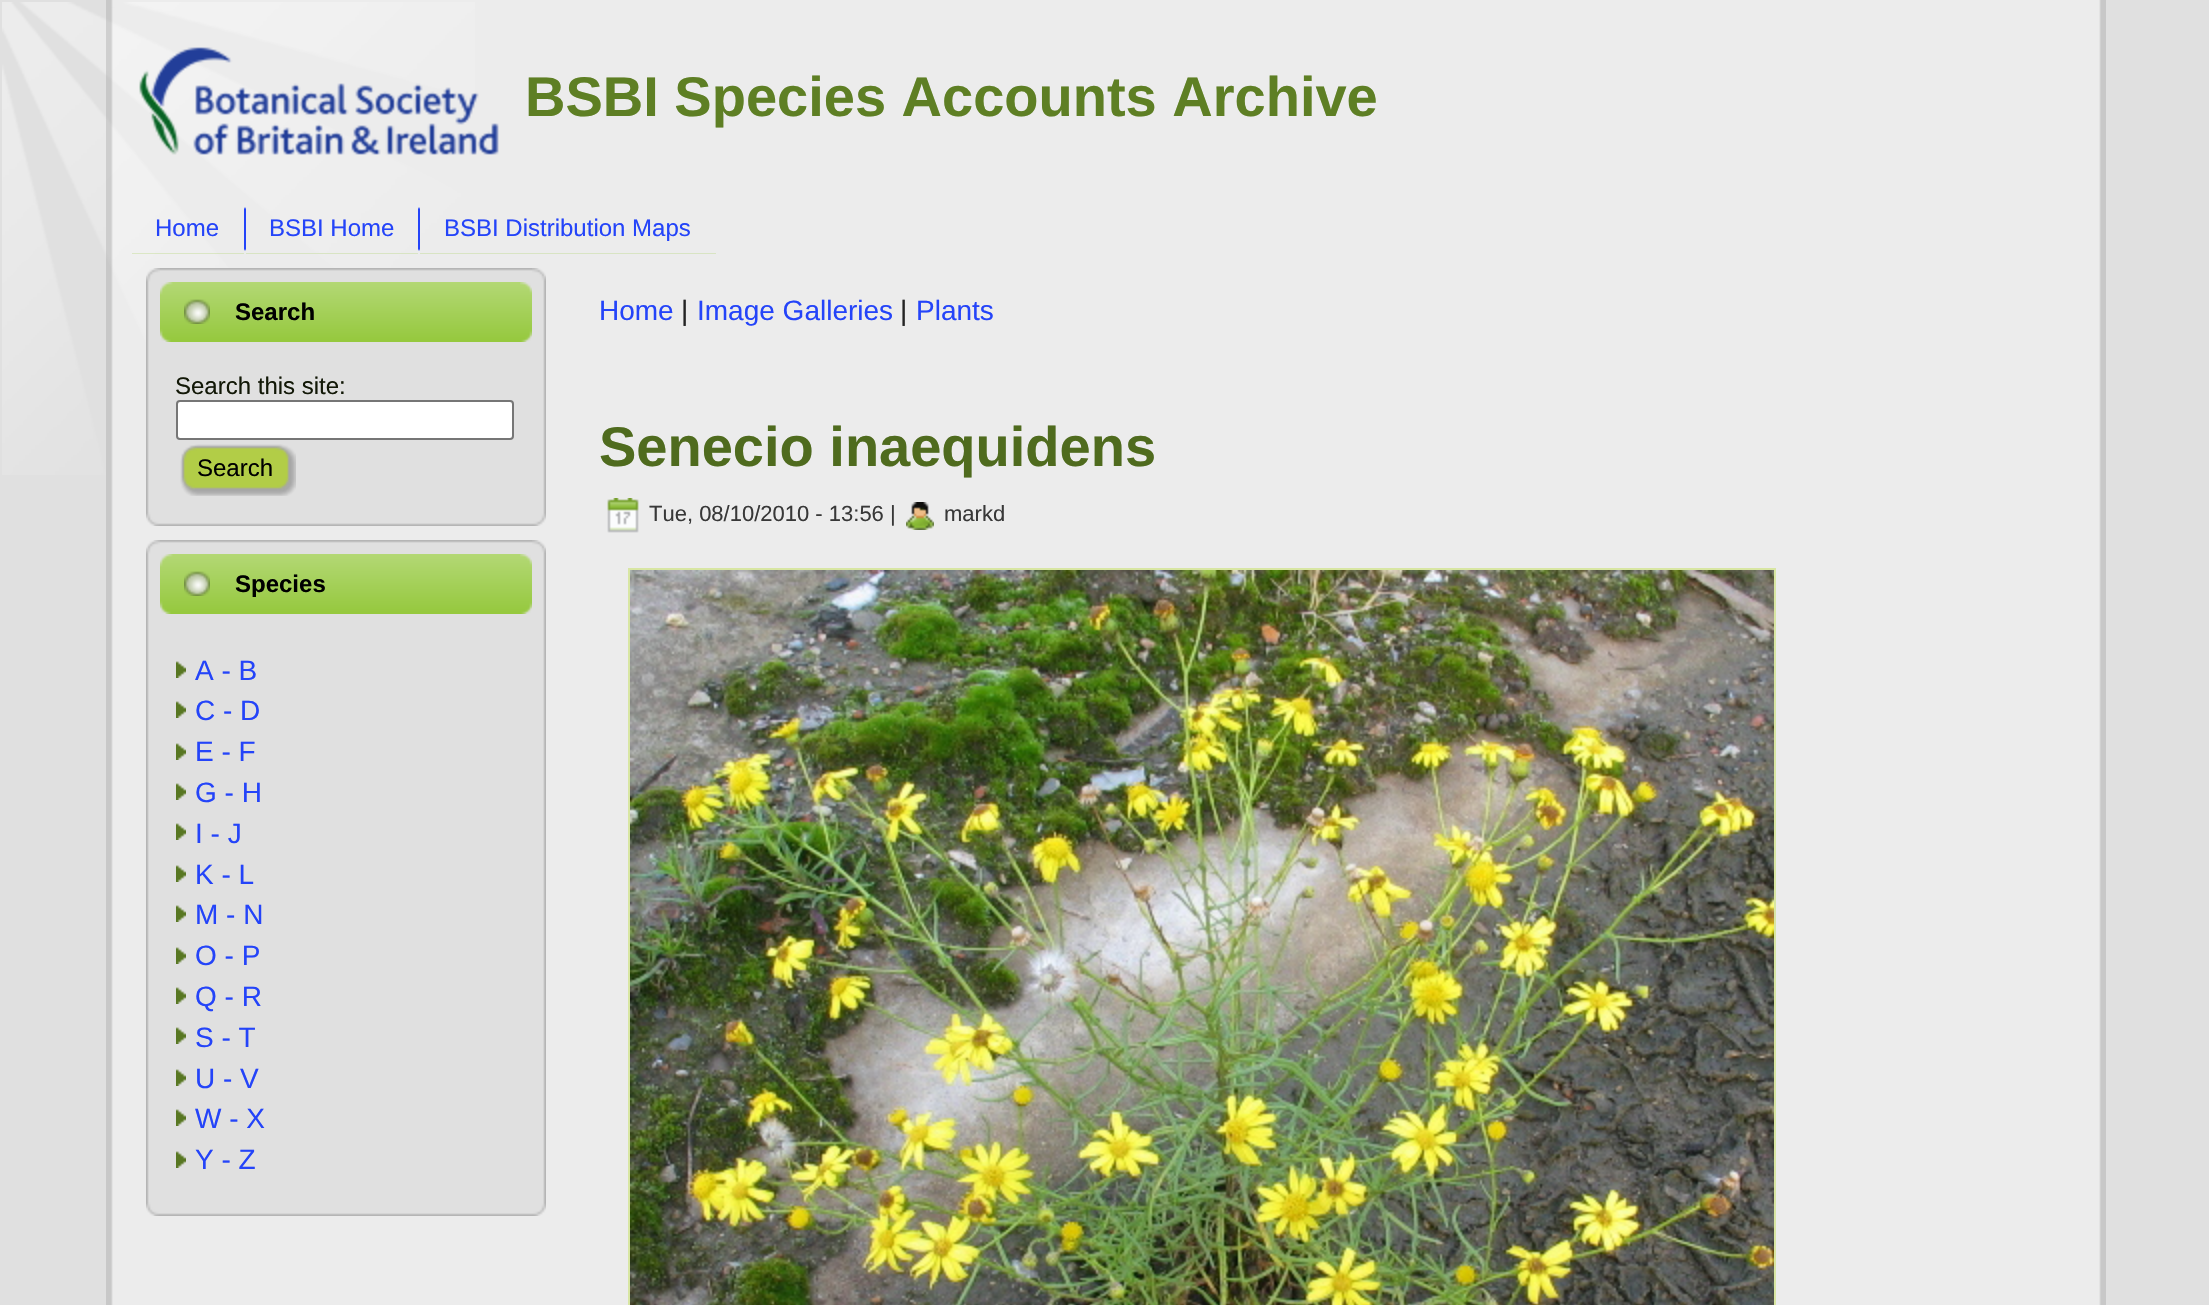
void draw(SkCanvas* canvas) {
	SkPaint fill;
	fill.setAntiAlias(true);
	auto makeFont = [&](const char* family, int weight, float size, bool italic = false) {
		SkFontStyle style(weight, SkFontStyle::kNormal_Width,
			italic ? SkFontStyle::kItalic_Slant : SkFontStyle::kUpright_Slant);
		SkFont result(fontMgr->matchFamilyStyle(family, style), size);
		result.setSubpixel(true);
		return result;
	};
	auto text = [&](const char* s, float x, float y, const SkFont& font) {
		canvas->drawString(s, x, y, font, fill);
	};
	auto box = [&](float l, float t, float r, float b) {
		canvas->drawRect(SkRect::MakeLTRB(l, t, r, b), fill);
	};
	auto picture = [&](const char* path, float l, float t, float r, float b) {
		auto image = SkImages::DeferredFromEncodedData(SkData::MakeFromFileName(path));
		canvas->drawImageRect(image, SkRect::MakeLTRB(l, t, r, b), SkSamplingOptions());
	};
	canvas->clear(0xFFE0E0E0);
	picture("image0.png", 2, 2, 475, 475);
	picture("image1.png", 106, 0, 140, 8);
	fill.setColor(0x66FFFFFF);
	box(140, 0, 2072, 8);
	picture("image2.png", 2072, 0, 2106, 8);
	picture("image3.png", 106, 8, 140, 1305);
	box(140, 8, 2072, 1305);
	picture("image4.png", 2072, 8, 2106, 1305);
	picture("image5.png", 139, 47, 499, 155);
	fill.setColor(0x409ACA45);
	box(132, 253, 244, 254);
	picture("image6.png", 244, 207, 246, 251);
	fill.setColor(0xFFD8E4C3);
	box(246, 253, 418, 254);
	picture("image7.png", 418, 207, 420, 251);
	box(420, 253, 716, 254);
	picture("image8.png", 146, 268, 160, 282);
	picture("image9.png", 160, 268, 532, 282);
	picture("image10.png", 532, 268, 546, 282);
	picture("image11.png", 146, 282, 160, 512);
	fill.setColor(0xFFE0E0E0);
	box(160, 282, 532, 512);
	picture("image12.png", 532, 282, 546, 512);
	picture("image13.png", 160, 282, 520, 342);
	picture("image14.png", 520, 282, 532, 342);
	picture("image15.png", 184, 299, 210, 324);
	fill.setColor(0xFFFFFFFF);
	canvas->drawRoundRect(SkRect::MakeLTRB(177, 401, 513, 439), 3, 3, fill);
	fill.setStyle(SkPaint::kStroke_Style);
	fill.setStrokeWidth(2);
	fill.setColor(0xFF767676);
	canvas->drawRoundRect(SkRect::MakeLTRB(177, 401, 513, 439), 3, 3, fill);
	picture("image16.png", 180, 444, 270, 496);
	picture("image17.png", 270, 444, 296, 496);
	picture("image18.png", 146, 512, 160, 526);
	picture("image19.png", 160, 512, 532, 526);
	picture("image20.png", 532, 512, 546, 526);
	picture("image21.png", 146, 540, 160, 554);
	picture("image9.png", 160, 540, 532, 554);
	picture("image10.png", 532, 540, 546, 554);
	picture("image22.png", 146, 554, 160, 1202);
	fill.setStyle(SkPaint::kFill_Style);
	fill.setColor(0xFFE0E0E0);
	box(160, 554, 532, 1202);
	picture("image23.png", 532, 554, 546, 1202);
	picture("image13.png", 160, 554, 520, 614);
	picture("image14.png", 520, 554, 532, 614);
	picture("image15.png", 184, 571, 210, 596);
	picture("image24.png", 176, 661, 186, 678);
	picture("image24.png", 176, 701, 186, 718);
	picture("image24.png", 176, 743, 186, 760);
	picture("image24.png", 176, 783, 186, 800);
	picture("image24.png", 176, 823, 186, 840);
	picture("image24.png", 176, 865, 186, 882);
	picture("image24.png", 176, 905, 186, 922);
	picture("image24.png", 176, 947, 186, 964);
	picture("image24.png", 176, 987, 186, 1004);
	picture("image24.png", 176, 1027, 186, 1044);
	picture("image24.png", 176, 1069, 186, 1086);
	picture("image24.png", 176, 1109, 186, 1126);
	picture("image24.png", 176, 1151, 186, 1168);
	picture("image18.png", 146, 1202, 160, 1216);
	picture("image19.png", 160, 1202, 532, 1216);
	picture("image20.png", 532, 1202, 546, 1216);
	picture("image25.png", 607, 498, 639, 533);
	picture("image26.png", 906, 502, 934, 530);
	fill.setStyle(SkPaint::kStroke_Style);
	fill.setColor(0xFFD8E6A3);
	canvas->drawRect(SkRect::MakeLTRB(629, 569, 1775, 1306), fill);
	picture("image27.png", 630, 570, 1774, 1305);
	auto font1 = makeFont("Liberation Sans", 700, 56);
	fill.setStyle(SkPaint::kFill_Style);
	fill.setColor(0xFF5E7F24);
	text("BSBI Species Accounts Archive", 525, 116, font1);
	auto font2 = makeFont("Liberation Sans", 400, 24);
	fill.setColor(0xFF2444F9);
	text("Home", 155, 236, font2);
	text("BSBI Home", 269, 236, font2);
	text("BSBI Distribution Maps", 444, 236, font2);
	auto font3 = makeFont("Liberation Sans", 700, 24);
	fill.setColor(0xFF000000);
	text("Search", 235, 320, font3);
	fill.setColor(0xFF121807);
	text("Search this site:", 175, 394, font2);
	fill.setColor(0xFF000000);
	text("Search", 197, 476, font2);
	text("Species", 235, 592, font3);
	auto font4 = makeFont("Liberation Sans", 400, 28);
	fill.setColor(0xFF2444F9);
	text("A - B", 195, 680, font4);
	text("C - D", 195, 720, font4);
	text("E - F", 195, 761, font4);
	text("G - H", 195, 802, font4);
	text("I - J", 195, 843, font4);
	text("K - L", 195, 884, font4);
	text("M - N", 195, 924, font4);
	text("O - P", 195, 965, font4);
	text("Q - R", 195, 1006, font4);
	text("S - T", 195, 1047, font4);
	text("U - V", 195, 1088, font4);
	text("W - X", 195, 1128, font4);
	text("Y - Z", 195, 1169, font4);
	text("Home", 599, 320, font4);
	fill.setColor(0xFF242424);
	text("|", 681, 320, font4);
	fill.setColor(0xFF2444F9);
	text("Image Galleries", 697, 320, font4);
	fill.setColor(0xFF242424);
	text("|", 900, 320, font4);
	fill.setColor(0xFF2444F9);
	text("Plants", 916, 320, font4);
	fill.setColor(0xFF4F6B1E);
	text("Senecio inaequidens", 599, 466, font1);
	auto font5 = makeFont("Liberation Sans", 400, 22);
	fill.setColor(0xFF383838);
	text("Tue, 08/10/2010 - 13:56 |", 649, 521, font5);
	text("markd", 944, 521, font5);
}
